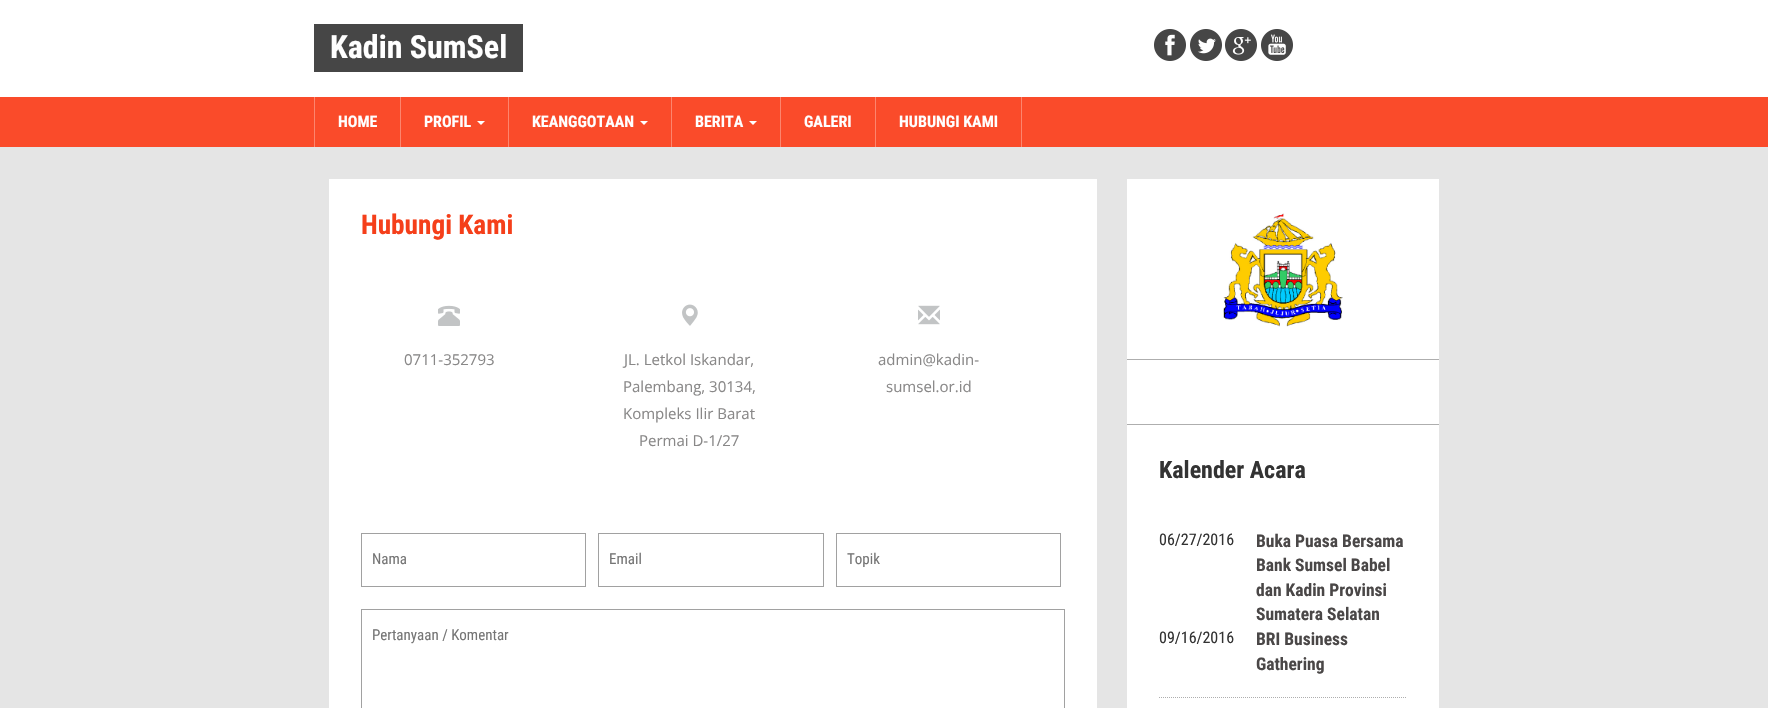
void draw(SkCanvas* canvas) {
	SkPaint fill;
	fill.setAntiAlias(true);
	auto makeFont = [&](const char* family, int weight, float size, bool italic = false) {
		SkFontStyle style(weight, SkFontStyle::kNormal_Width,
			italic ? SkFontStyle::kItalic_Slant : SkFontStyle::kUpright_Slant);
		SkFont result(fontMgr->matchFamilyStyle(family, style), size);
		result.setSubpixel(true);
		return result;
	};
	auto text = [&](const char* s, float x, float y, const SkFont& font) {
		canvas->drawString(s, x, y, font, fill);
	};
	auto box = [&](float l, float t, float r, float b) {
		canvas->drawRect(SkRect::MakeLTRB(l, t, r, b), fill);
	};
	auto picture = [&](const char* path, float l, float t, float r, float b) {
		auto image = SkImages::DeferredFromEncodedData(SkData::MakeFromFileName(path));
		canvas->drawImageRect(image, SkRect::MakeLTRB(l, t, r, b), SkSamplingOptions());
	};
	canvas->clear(0xFFE5E5E5);
	fill.setColor(0xFFFFFFFF);
	box(0, 0, 1768, 97);
	fill.setColor(0xFF464646);
	box(314, 24, 523, 72);
	picture("image0.png", 1154, 29, 1186, 61);
	picture("image1.png", 1190, 29, 1222, 61);
	picture("image2.png", 1225, 29, 1257, 61);
	picture("image3.png", 1261, 29, 1293, 61);
	fill.setColor(0xFFFA4B2A);
	box(0, 97, 1768, 147);
	fill.setColor(0xFFFC856E);
	box(400, 97, 401, 147);
	box(314, 97, 315, 147);
	box(508, 97, 509, 147);
	fill.setColor(0xFFFFFFFF);
	canvas->drawPath(SkPathBuilder().moveTo(477, 121).lineTo(485, 121).lineTo(481, 125).close().detach(), fill);
	fill.setColor(0xFFFC856E);
	box(671, 97, 672, 147);
	fill.setColor(0xFFFFFFFF);
	canvas->drawPath(SkPathBuilder().moveTo(640, 121).lineTo(648, 121).lineTo(644, 125).close().detach(), fill);
	fill.setColor(0xFFFC856E);
	box(780, 97, 781, 147);
	fill.setColor(0xFFFFFFFF);
	canvas->drawPath(SkPathBuilder().moveTo(749, 121).lineTo(757, 121).lineTo(753, 125).close().detach(), fill);
	fill.setColor(0xFFFC856E);
	box(875, 97, 876, 147);
	box(1021, 97, 1022, 147);
	fill.setColor(0xFFFFFFFF);
	box(329, 179, 1097, 708);
	picture("image4.png", 438, 305, 460, 326);
	picture("image5.png", 682, 304, 698, 326);
	picture("image6.png", 918, 305, 940, 325);
	fill.setStyle(SkPaint::kStroke_Style);
	fill.setStrokeWidth(1);
	fill.setColor(0xFFA1A1A1);
	canvas->drawRect(SkRect::MakeLTRB(361.5f, 533.5f, 585.5f, 586.5f), fill);
	canvas->drawRect(SkRect::MakeLTRB(598.5f, 533.5f, 823.5f, 586.5f), fill);
	canvas->drawRect(SkRect::MakeLTRB(836.5f, 533.5f, 1060.5f, 586.5f), fill);
	canvas->drawRect(SkRect::MakeLTRB(361.5f, 609.5f, 1064.5f, 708.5f), fill);
	fill.setStyle(SkPaint::kFill_Style);
	fill.setColor(0xFFAEAEAE);
	box(1127, 359, 1439, 360);
	fill.setColor(0xFFFFFFFF);
	box(1127, 179, 1439, 359);
	picture("image7.png", 1223, 213, 1343, 327);
	fill.setColor(0xFFAEAEAE);
	box(1127, 424, 1439, 425);
	fill.setColor(0xFFFFFFFF);
	box(1127, 360, 1439, 424);
	box(1127, 425, 1439, 708);
	fill.setStyle(SkPaint::kStroke_Style);
	fill.setColor(0xFFAEAEAE);
	fill.setPathEffect(SkDashPathEffect::Make({{1, 1}}, 0));
	canvas->drawPath(SkPathBuilder().moveTo(1159, 697.5f).lineTo(1407, 697.5f).detach(), fill);
	fill.setPathEffect(nullptr);
	auto font1 = makeFont("Roboto Condensed", 700, 32);
	fill.setStyle(SkPaint::kFill_Style);
	fill.setColor(0xFFFFFFFF);
	text("Kadin SumSel", 330, 58, font1);
	auto font2 = makeFont("Roboto Condensed", 700, 16);
	text("HOME", 338, 127, font2);
	text("PROFIL", 424, 127, font2);
	text("KEANGGOTAAN", 532, 127, font2);
	text("BERITA", 695, 127, font2);
	text("GALERI", 804, 127, font2);
	text("HUBUNGI KAMI", 899, 127, font2);
	auto font3 = makeFont("Roboto Condensed", 700, 27.25f);
	fill.setColor(0xFFF53F1A);
	text("Hubungi Kami", 361, 234, font3);
	auto font4 = makeFont("Open Sans", 400, 15);
	fill.setColor(0xFF898888);
	text("0711-352793", 404, 365, font4);
	text("JL. Letkol Iskandar,", 624, 365, font4);
	text("Palembang, 30134,", 623, 392, font4);
	text("Kompleks Ilir Barat", 623, 419, font4);
	text("Permai D-1/27", 639, 446, font4);
	text("admin@kadin-", 878, 365, font4);
	text("sumsel.or.id", 886, 392, font4);
	auto font5 = makeFont("Roboto Condensed", 400, 15);
	fill.setColor(0xFF757575);
	text("Nama", 372, 564, font5);
	text("Email", 609, 564, font5);
	text("Topik", 847, 564, font5);
	text("Pertanyaan / Komentar", 372, 640, font5);
	auto font6 = makeFont("Roboto Condensed", 700, 24);
	fill.setColor(0xFF333333);
	text("Kalender Acara", 1159, 478, font6);
	auto font7 = makeFont("Roboto Condensed", 400, 16);
	text("06/27/2016", 1159, 545, font7);
	auto font8 = makeFont("Roboto Condensed", 700, 17.5f);
	fill.setColor(0xFF4A4747);
	text("Buka Puasa Bersama", 1256, 547, font8);
	text("Bank Sumsel Babel", 1256, 571, font8);
	text("dan Kadin Provinsi", 1256, 596, font8);
	text("Sumatera Selatan", 1256, 620, font8);
	fill.setColor(0xFF333333);
	text("09/16/2016", 1159, 643, font7);
	fill.setColor(0xFF4A4747);
	text("BRI Business", 1256, 645, font8);
	text("Gathering", 1256, 670, font8);
}
